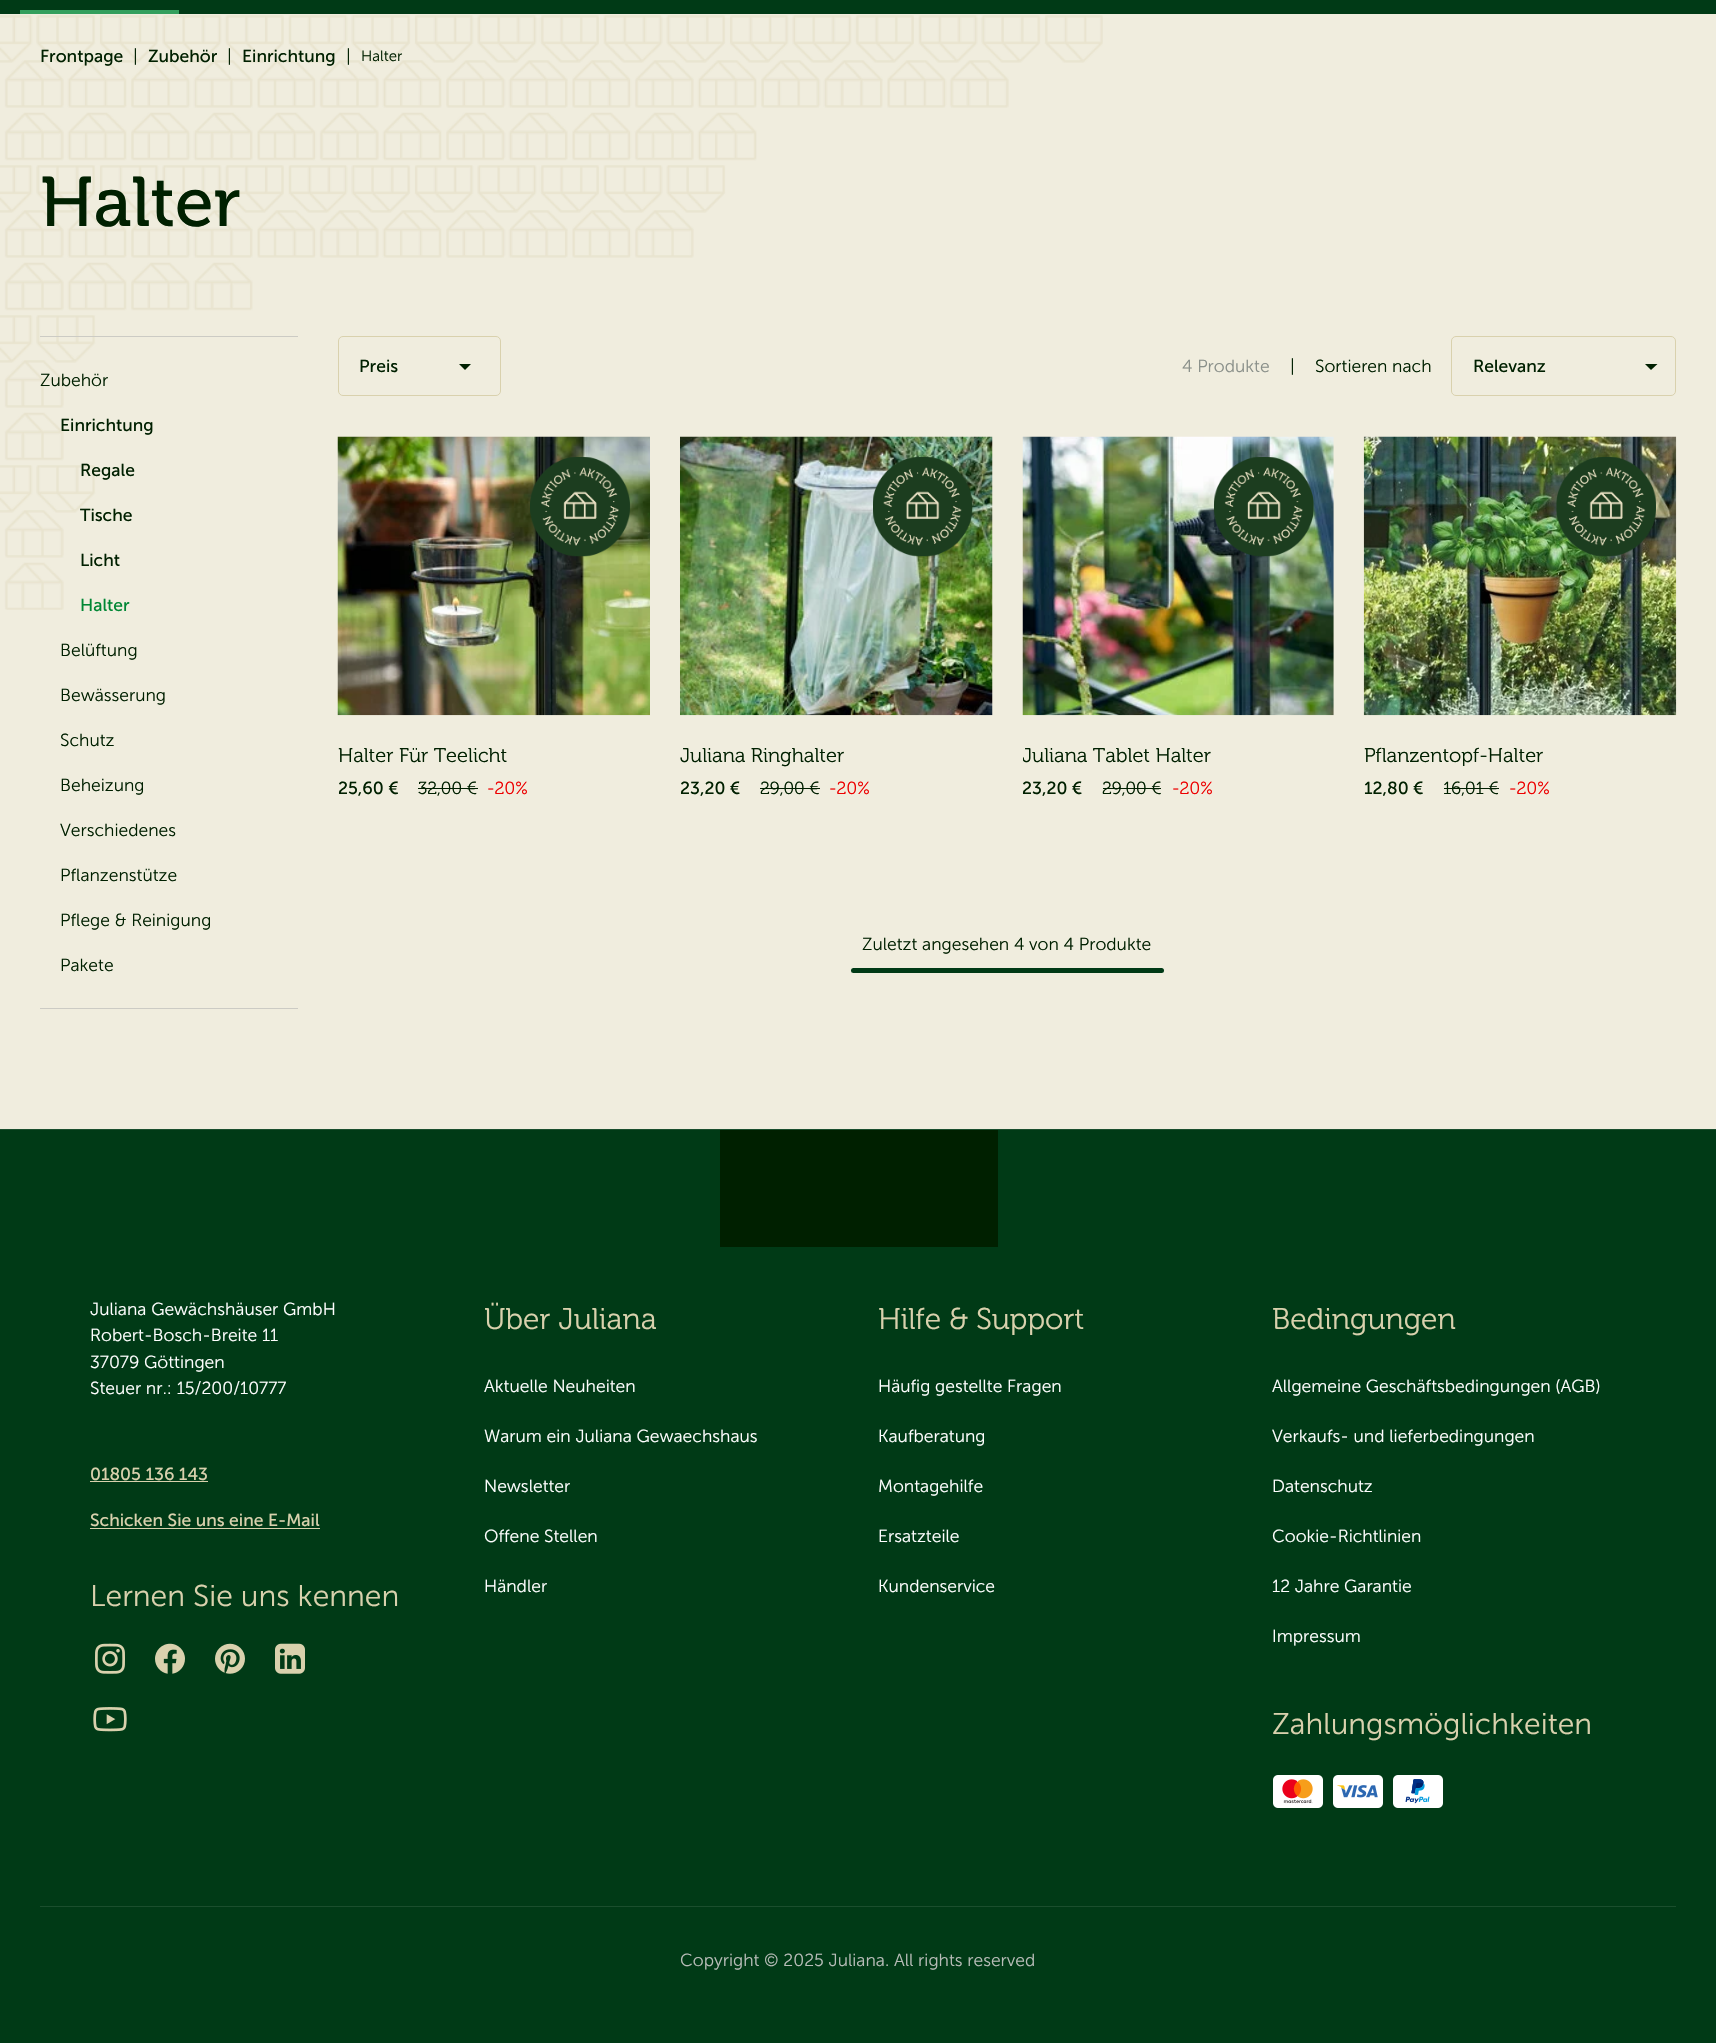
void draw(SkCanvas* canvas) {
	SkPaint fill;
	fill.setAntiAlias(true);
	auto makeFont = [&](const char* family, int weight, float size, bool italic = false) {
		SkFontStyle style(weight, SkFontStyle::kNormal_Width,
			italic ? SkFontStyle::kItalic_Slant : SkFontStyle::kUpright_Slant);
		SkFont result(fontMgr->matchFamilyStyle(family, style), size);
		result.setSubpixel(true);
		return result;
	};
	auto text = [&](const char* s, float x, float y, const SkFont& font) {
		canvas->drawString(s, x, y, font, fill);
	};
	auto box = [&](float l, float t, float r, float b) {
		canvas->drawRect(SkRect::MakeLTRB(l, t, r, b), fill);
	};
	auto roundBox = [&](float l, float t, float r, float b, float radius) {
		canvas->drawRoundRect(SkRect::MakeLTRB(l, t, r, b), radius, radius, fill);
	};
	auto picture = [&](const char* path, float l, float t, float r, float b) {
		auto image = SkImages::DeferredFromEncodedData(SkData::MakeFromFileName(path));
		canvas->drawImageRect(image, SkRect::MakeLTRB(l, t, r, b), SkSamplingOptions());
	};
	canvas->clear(0xFFF0EDDE);
	fill.setColor(0xFF003A16);
	box(0, 0, 1716, 14);
	fill.setColor(0xFF339F5D);
	box(20, 10, 179, 14);
	picture("image0.png", 0, 15, 1103, 610);
	fill.setColor(0xFFCCCBC4);
	box(40, 336, 298, 337);
	box(40, 1008, 298, 1009);
	fill.setStyle(SkPaint::kStroke_Style);
	fill.setStrokeWidth(1);
	fill.setColor(0xFFD9D1AD);
	canvas->drawRoundRect(SkRect::MakeLTRB(338.5f, 336.5f, 500.5f, 395.5f), 4.5f, 4.5f, fill);
	fill.setStyle(SkPaint::kFill_Style);
	fill.setColor(0xFF002000);
	canvas->drawPath(SkPathBuilder(SkPathFillType::kEvenOdd).moveTo(459, 364).lineTo(465, 370).lineTo(471, 364).close().detach(), fill);
	fill.setStyle(SkPaint::kStroke_Style);
	fill.setColor(0xFFD9D1AD);
	canvas->drawRoundRect(SkRect::MakeLTRB(1451.5f, 336.5f, 1675.5f, 395.5f), 4.5f, 4.5f, fill);
	fill.setStyle(SkPaint::kFill_Style);
	fill.setColor(0xFF002000);
	canvas->drawPath(SkPathBuilder(SkPathFillType::kEvenOdd).moveTo(1645, 364).lineTo(1651, 370).lineTo(1657.5f, 364).close().detach(), fill);
	picture("image1.png", 337, 436, 650, 716);
	picture("image2.png", 530, 457, 630, 557);
	box(418, 788, 478, 789);
	picture("image3.png", 680, 436, 993, 716);
	picture("image4.png", 873, 457, 973, 557);
	box(760, 788, 820, 789);
	picture("image5.png", 1022, 436, 1334, 716);
	picture("image6.png", 1214, 457, 1314, 557);
	box(1103, 788, 1161, 789);
	picture("image7.png", 1363, 436, 1677, 716);
	picture("image8.png", 1556, 457, 1656, 557);
	box(1444, 788, 1499, 789);
	fill.setColor(0xFF003A16);
	roundBox(851, 968, 1164, 973, 2.5f);
	box(0, 1130, 1716, 2043);
	fill.setColor(0xFF1A4E2D);
	box(0, 1129, 1716, 1130);
	fill.setColor(0xFF002000);
	box(720, 1130, 998, 1247);
	fill.setColor(0xFFD9D1AD);
	box(90, 1481, 208, 1482);
	box(90, 1528, 320, 1529);
	picture("image9.png", 95, 1643, 125, 1674);
	picture("image10.png", 155, 1643, 185, 1674);
	picture("image11.png", 215, 1643, 245, 1674);
	picture("image12.png", 275, 1643, 305, 1674);
	picture("image13.png", 93, 1707, 127, 1732);
	picture("image14.png", 1273, 1775, 1323, 1808);
	picture("image15.png", 1333, 1775, 1383, 1808);
	picture("image16.png", 1393, 1775, 1443, 1808);
	fill.setColor(0xFF1A4E2D);
	box(40, 1906, 1676, 1907);
	auto font1 = makeFont("Museo Sans", 400, 17.5f);
	fill.setColor(0xFF002000);
	text("Frontpage", 40, 62, font1);
	auto font2 = makeFont("Museo Sans", 300, 17.5f);
	text("|", 133, 62, font2);
	text("Zubehör", 148, 62, font1);
	text("|", 227, 62, font2);
	text("Einrichtung", 242, 62, font1);
	text("|", 346, 62, font2);
	auto font3 = makeFont("Museo Sans", 300, 15);
	text("Halter", 361, 61, font3);
	auto font4 = makeFont("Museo", 400, 70);
	text("Halter", 40, 226, font4);
	text("Zubehör", 40, 386, font2);
	text("Einrichtung", 60, 431, font1);
	text("Regale", 80, 476, font1);
	text("Tische", 80, 521, font1);
	text("Licht", 80, 566, font1);
	fill.setColor(0xFF008734);
	text("Halter", 80, 611, font1);
	fill.setColor(0xFF002000);
	text("Belüftung", 60, 656, font2);
	text("Bewässerung", 60, 701, font2);
	text("Schutz", 60, 746, font2);
	text("Beheizung", 60, 791, font2);
	text("Verschiedenes", 60, 836, font2);
	text("Pflanzenstütze", 60, 881, font2);
	text("Pflege & Reinigung", 60, 926, font2);
	text("Pakete", 60, 971, font2);
	text("Preis", 359, 372, font1);
	fill.setColor(0xFF8A908A);
	text("4 Produkte", 1182, 372, font2);
	fill.setColor(0xFF002000);
	text("|", 1290, 372, font2);
	text("Sortieren nach", 1315, 372, font2);
	text("Relevanz", 1473, 372, font1);
	auto font5 = makeFont("Museo", 300, 20);
	text("Halter Für Teelicht", 338, 762, font5);
	text("25,60 €", 338, 794, font1);
	auto font6 = makeFont("Museo", 300, 17.5f);
	text("32,00 €", 418, 794, font6);
	fill.setColor(0xFFED0000);
	text("-20%", 487, 794, font6);
	fill.setColor(0xFF002000);
	text("Juliana Ringhalter", 680, 762, font5);
	text("23,20 €", 680, 794, font1);
	text("29,00 €", 760, 794, font6);
	fill.setColor(0xFFED0000);
	text("-20%", 829, 794, font6);
	canvas->save();
	canvas->clipRect(SkRect::MakeLTRB(1023, 740, 1334, 770));
	fill.setColor(0xFF002000);
	text("Juliana Tablet Halter", 1022, 762, font5);
	canvas->restore();
	text("23,20 €", 1022, 794, font1);
	text("29,00 €", 1102, 794, font6);
	fill.setColor(0xFFED0000);
	text("-20%", 1172, 794, font6);
	fill.setColor(0xFF002000);
	text("Pflanzentopf-Halter", 1364, 762, font5);
	text("12,80 €", 1364, 794, font1);
	text("16,01 €", 1443, 794, font6);
	fill.setColor(0xFFED0000);
	text("-20%", 1509, 794, font6);
	fill.setColor(0xFF002000);
	text("Zuletzt angesehen 4 von 4 Produkte", 862, 950, font2);
	fill.setColor(0xFFFFFFFF);
	text("Juliana Gewächshäuser GmbH", 90, 1315, font2);
	text("Robert-Bosch-Breite 11", 90, 1341, font2);
	text("37079 Göttingen", 90, 1368, font2);
	text("Steuer nr.: 15/200/10777", 90, 1394, font2);
	fill.setColor(0xFFD9D1AD);
	text("01805 136 143", 90, 1480, font1);
	text("Schicken Sie uns eine E-Mail", 90, 1526, font1);
	auto font7 = makeFont("Museo Sans", 300, 30);
	text("Lernen Sie uns kennen", 90, 1606, font7);
	auto font8 = makeFont("Museo", 300, 30);
	text("Über Juliana", 484, 1329, font8);
	fill.setColor(0xFFFFFFFF);
	text("Aktuelle Neuheiten", 484, 1392, font2);
	text("Warum ein Juliana Gewaechshaus", 484, 1442, font2);
	text("Newsletter", 484, 1492, font2);
	text("Offene Stellen", 484, 1542, font2);
	text("Händler", 484, 1592, font2);
	fill.setColor(0xFFD9D1AD);
	text("Hilfe & Support", 878, 1329, font8);
	fill.setColor(0xFFFFFFFF);
	text("Häufig gestellte Fragen", 878, 1392, font2);
	text("Kaufberatung", 878, 1442, font2);
	text("Montagehilfe", 878, 1492, font2);
	text("Ersatzteile", 878, 1542, font2);
	text("Kundenservice", 878, 1592, font2);
	fill.setColor(0xFFD9D1AD);
	text("Bedingungen", 1272, 1329, font8);
	fill.setColor(0xFFFFFFFF);
	text("Allgemeine Geschäftsbedingungen (AGB)", 1272, 1392, font2);
	text("Verkaufs- und lieferbedingungen", 1272, 1442, font2);
	text("Datenschutz", 1272, 1492, font2);
	text("Cookie-Richtlinien", 1272, 1542, font2);
	text("12 Jahre Garantie", 1272, 1592, font2);
	text("Impressum", 1272, 1642, font2);
	fill.setColor(0xFFD9D1AD);
	text("Zahlungsmöglichkeiten", 1272, 1734, font7);
	fill.setColor(0xFFB8BCB8);
	text("Copyright © 2025 Juliana. All rights reserved", 680, 1966, font2);
}
